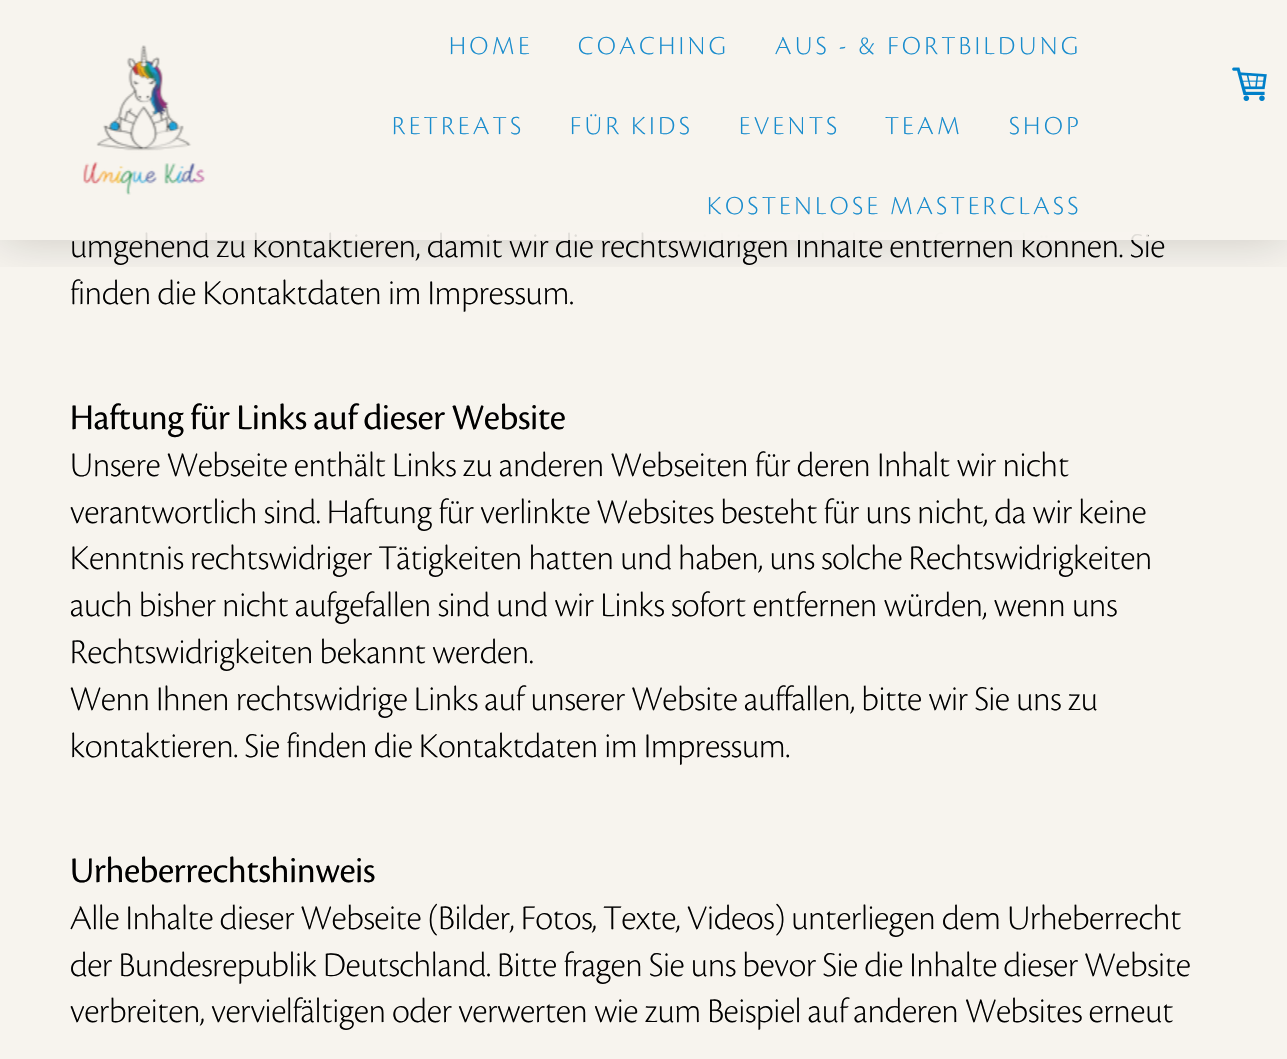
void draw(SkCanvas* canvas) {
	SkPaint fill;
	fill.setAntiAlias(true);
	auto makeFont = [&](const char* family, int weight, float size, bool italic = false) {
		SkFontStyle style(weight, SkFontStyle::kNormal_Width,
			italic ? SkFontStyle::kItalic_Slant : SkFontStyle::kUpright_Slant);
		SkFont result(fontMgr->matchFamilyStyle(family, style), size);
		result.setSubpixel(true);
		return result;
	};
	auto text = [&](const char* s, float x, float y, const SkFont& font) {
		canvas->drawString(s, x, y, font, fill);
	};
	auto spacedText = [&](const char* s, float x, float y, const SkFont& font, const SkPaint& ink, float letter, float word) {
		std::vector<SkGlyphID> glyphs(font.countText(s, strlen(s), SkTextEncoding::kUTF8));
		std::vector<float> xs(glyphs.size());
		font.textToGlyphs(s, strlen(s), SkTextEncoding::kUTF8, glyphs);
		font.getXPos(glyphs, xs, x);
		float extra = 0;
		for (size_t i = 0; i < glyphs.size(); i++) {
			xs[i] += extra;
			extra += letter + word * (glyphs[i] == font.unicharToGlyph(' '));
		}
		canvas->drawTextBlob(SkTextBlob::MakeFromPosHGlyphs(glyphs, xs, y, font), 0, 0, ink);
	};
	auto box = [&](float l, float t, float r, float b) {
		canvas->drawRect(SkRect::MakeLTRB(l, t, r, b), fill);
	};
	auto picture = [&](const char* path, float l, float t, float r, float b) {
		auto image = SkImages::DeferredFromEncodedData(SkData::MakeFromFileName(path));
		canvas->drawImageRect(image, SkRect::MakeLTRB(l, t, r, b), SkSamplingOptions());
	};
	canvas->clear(0xFFF7F4EE);
	canvas->save();
	canvas->clipRect(SkRect::MakeLTRB(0, 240, 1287, 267));
	fill.setColor(0x2E000000);
	fill.setMaskFilter(SkMaskFilter::MakeBlur(kNormal_SkBlurStyle, 22.5f));
	canvas->drawRect(SkRect::MakeLTRB(0, 0, 1287, 240), fill);
	fill.setMaskFilter(nullptr);
	canvas->restore();
	picture("image0.png", 83, 45, 205, 195);
	picture("image1.png", 1232, 67, 1267, 101);
	auto font1 = makeFont("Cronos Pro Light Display", 300, 27);
	fill.setColor(0xFF198CCD);
	spacedText("HOME", 449, 54, font1, fill, 3.75f, 0);
	spacedText("COACHING", 578, 54, font1, fill, 3.75f, 0);
	spacedText("AUS - & FORTBILDUNG", 775, 54, font1, fill, 3.75f, 0);
	spacedText("RETREATS", 392, 134, font1, fill, 3.75f, 0);
	spacedText("FÜR KIDS", 570, 134, font1, fill, 3.75f, 0);
	spacedText("EVENTS", 739, 134, font1, fill, 3.75f, 0);
	spacedText("TEAM", 885, 134, font1, fill, 3.75f, 0);
	spacedText("SHOP", 1009, 134, font1, fill, 3.75f, 0);
	spacedText("KOSTENLOSE MASTERCLASS", 707, 214, font1, fill, 3.75f, 0);
	auto font2 = makeFont("Cronos Pro Light Display", 300, 36);
	fill.setColor(0xFF000000);
	text("umgehend zu kontaktieren, damit wir die rechtswidrigen Inhalte entfernen können. Sie", 70, 257, font2);
	fill.setColor(0xE6F7F4EE);
	box(145, 232, 1148, 240);
	box(703, 232, 1048, 240);
	fill.setColor(0xFF000000);
	text("finden die Kontaktdaten im Impressum.", 70, 304, font2);
	auto font3 = makeFont("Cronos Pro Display", 400, 37.5f);
	text("Haftung für Links auf dieser Website", 70, 429, font3);
	text("Unsere Webseite enthält Links zu anderen Webseiten für deren Inhalt wir nicht", 70, 476, font2);
	text("verantwortlich sind. Haftung für verlinkte Websites besteht für uns nicht, da wir keine", 70, 523, font2);
	text("Kenntnis rechtswidriger Tätigkeiten hatten und haben, uns solche Rechtswidrigkeiten", 70, 569, font2);
	text("auch bisher nicht aufgefallen sind und wir Links sofort entfernen würden, wenn uns", 70, 616, font2);
	text("Rechtswidrigkeiten bekannt werden.", 70, 663, font2);
	text("Wenn Ihnen rechtswidrige Links auf unserer Website auffallen, bitte wir Sie uns zu", 70, 710, font2);
	text("kontaktieren. Sie finden die Kontaktdaten im Impressum.", 70, 757, font2);
	text("Urheberrechtshinweis", 70, 882, font3);
	text("Alle Inhalte dieser Webseite (Bilder, Fotos, Texte, Videos) unterliegen dem Urheberrecht", 70, 929, font2);
	text("der Bundesrepublik Deutschland. Bitte fragen Sie uns bevor Sie die Inhalte dieser Website", 70, 976, font2);
	text("verbreiten, vervielfältigen oder verwerten wie zum Beispiel auf anderen Websites erneut", 70, 1022, font2);
}
